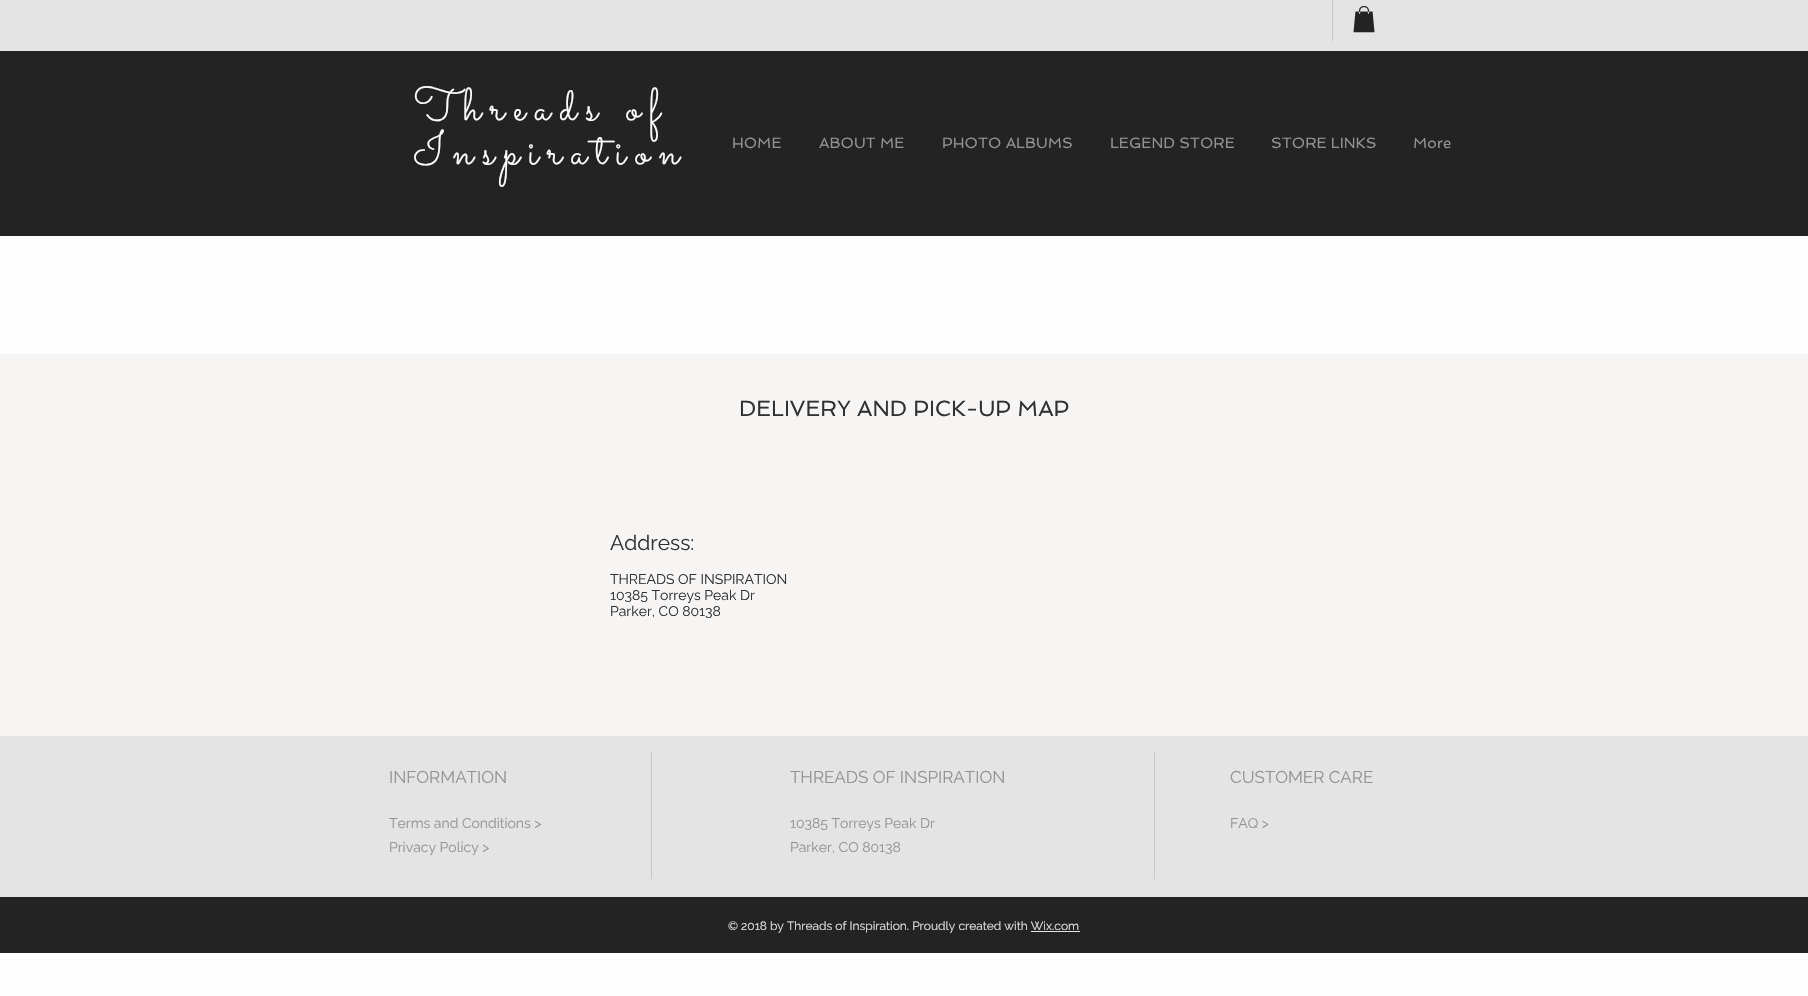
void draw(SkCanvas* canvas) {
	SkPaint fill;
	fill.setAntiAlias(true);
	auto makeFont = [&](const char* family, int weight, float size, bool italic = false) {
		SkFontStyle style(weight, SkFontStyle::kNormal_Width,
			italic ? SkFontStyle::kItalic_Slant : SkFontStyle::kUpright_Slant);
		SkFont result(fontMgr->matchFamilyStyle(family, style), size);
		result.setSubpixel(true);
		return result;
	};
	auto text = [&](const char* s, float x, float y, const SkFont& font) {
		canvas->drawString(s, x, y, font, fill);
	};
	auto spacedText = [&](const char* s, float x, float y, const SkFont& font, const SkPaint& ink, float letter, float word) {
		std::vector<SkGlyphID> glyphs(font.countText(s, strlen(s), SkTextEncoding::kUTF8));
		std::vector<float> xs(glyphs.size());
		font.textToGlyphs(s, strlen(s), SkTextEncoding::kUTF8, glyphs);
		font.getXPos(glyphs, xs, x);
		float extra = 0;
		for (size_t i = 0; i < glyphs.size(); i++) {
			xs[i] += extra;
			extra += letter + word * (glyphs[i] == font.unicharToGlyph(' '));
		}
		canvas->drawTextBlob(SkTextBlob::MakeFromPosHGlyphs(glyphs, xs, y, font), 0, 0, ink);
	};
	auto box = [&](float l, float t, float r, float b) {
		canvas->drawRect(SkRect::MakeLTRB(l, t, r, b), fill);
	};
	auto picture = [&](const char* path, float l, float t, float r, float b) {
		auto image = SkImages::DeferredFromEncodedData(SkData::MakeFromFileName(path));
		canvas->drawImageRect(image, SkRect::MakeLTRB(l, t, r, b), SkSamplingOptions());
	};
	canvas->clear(0xFFFDFDFD);
	fill.setColor(0xFFE4E4E4);
	box(0, 0, 1808, 51);
	fill.setColor(0xFFC8C8C8);
	box(1332, 0, 1333, 41);
	picture("image0.png", 1353, 6, 1375, 33);
	fill.setColor(0xFF242323);
	box(0, 51, 1808, 236);
	fill.setColor(0xFFF7F4F4);
	box(0, 354, 1808, 736);
	fill.setColor(0xFFE4E4E4);
	box(0, 736, 1808, 897);
	fill.setColor(0xFFC8C8C8);
	box(651, 752, 652, 879);
	box(1154, 752, 1155, 879);
	fill.setColor(0xFF242323);
	box(0, 897, 1808, 953);
	fill.setColor(0xFFE4E4E4);
	box(1031, 931, 1080, 932);
	auto font1 = makeFont("Sacramento", 400, 46);
	fill.setColor(0xFFFDFDFD);
	spacedText("Threads of", 414, 120, font1, fill, 9.25f, 0);
	spacedText("Inspiration", 414, 164, font1, fill, 9.25f, 0);
	auto font2 = makeFont("Spinnaker", 400, 15);
	fill.setColor(0xFF939393);
	text("HOME", 732, 148, font2);
	text("ABOUT ME", 819, 148, font2);
	text("PHOTO ALBUMS", 942, 148, font2);
	text("LEGEND STORE", 1110, 148, font2);
	text("STORE LINKS", 1271, 148, font2);
	text("More", 1413, 148, font2);
	auto font3 = makeFont("Spinnaker", 400, 22);
	fill.setColor(0xFF313131);
	text("DELIVERY AND PICK-UP MAP", 739, 416, font3);
	auto font4 = makeFont("Raleway", 400, 21);
	text("Address:", 610, 550, font4);
	auto font5 = makeFont("Raleway", 400, 14);
	text("THREADS OF INSPIRATION", 610, 584, font5);
	text("10385 Torreys Peak Dr", 610, 600, font5);
	text("Parker, CO 80138", 610, 616, font5);
	auto font6 = makeFont("Raleway", 400, 17);
	fill.setColor(0xFF939393);
	text("INFORMATION", 389, 783, font6);
	text("Terms and Conditions >", 389, 828, font5);
	text("Privacy Policy >", 389, 852, font5);
	text("THREADS OF INSPIRATION", 790, 783, font6);
	text("10385 Torreys Peak Dr", 790, 828, font5);
	text("Parker, CO 80138", 790, 852, font5);
	text("CUSTOMER CARE", 1230, 783, font6);
	text("FAQ >", 1230, 828, font5);
	auto font7 = makeFont("Raleway", 400, 12);
	fill.setColor(0xFFE4E4E4);
	text("© 2018 by Threads of Inspiration. Proudly created with Wix.com", 728, 930, font7);
}
